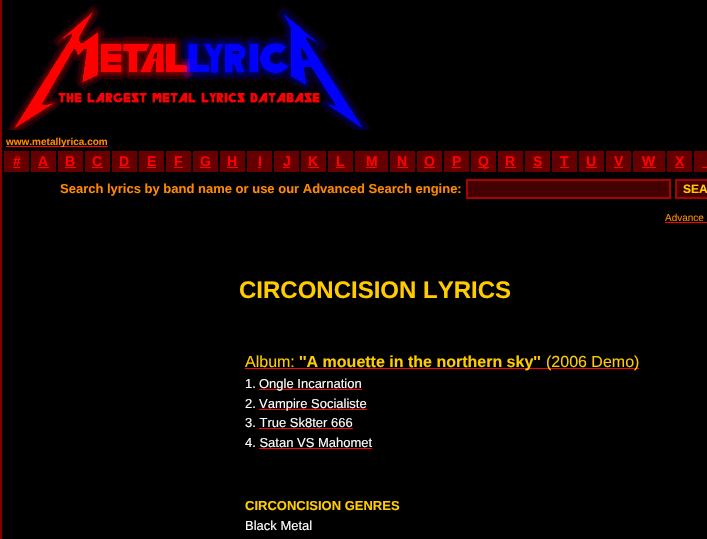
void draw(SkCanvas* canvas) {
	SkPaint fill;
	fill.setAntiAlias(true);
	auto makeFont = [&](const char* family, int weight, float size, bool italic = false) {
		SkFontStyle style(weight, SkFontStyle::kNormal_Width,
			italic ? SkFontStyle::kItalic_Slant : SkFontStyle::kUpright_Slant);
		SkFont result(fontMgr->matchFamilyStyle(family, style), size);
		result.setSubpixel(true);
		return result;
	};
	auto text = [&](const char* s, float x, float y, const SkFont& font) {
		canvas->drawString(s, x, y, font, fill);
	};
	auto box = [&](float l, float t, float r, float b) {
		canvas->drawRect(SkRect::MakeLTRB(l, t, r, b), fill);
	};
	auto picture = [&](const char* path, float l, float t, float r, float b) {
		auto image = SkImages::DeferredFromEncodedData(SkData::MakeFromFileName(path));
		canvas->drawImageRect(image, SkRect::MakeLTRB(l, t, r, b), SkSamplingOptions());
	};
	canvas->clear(0xFF000000);
	fill.setColor(0xFF880000);
	box(0, 0, 2, 539);
	picture("image0.png", 6, 4, 372, 130);
	fill.setColor(0xFFFF0000);
	box(6, 146, 108, 147);
	fill.setColor(0xFF660000);
	box(4, 151, 707, 172);
	fill.setColor(0xFFFF0000);
	box(13, 167, 20, 168);
	fill.setColor(0xFF000000);
	box(29, 151, 31, 172);
	fill.setColor(0xFFFF0000);
	box(38, 167, 49, 168);
	fill.setColor(0xFF000000);
	box(56, 151, 58, 172);
	fill.setColor(0xFFFF0000);
	box(65, 167, 76, 168);
	fill.setColor(0xFF000000);
	box(83, 151, 85, 172);
	fill.setColor(0xFFFF0000);
	box(92, 167, 103, 168);
	fill.setColor(0xFF000000);
	box(110, 151, 112, 172);
	fill.setColor(0xFFFF0000);
	box(119, 167, 130, 168);
	fill.setColor(0xFF000000);
	box(137, 151, 139, 172);
	fill.setColor(0xFFFF0000);
	box(147, 167, 156, 168);
	fill.setColor(0xFF000000);
	box(164, 151, 166, 172);
	fill.setColor(0xFFFF0000);
	box(174, 167, 183, 168);
	fill.setColor(0xFF000000);
	box(191, 151, 193, 172);
	fill.setColor(0xFFFF0000);
	box(200, 167, 211, 168);
	fill.setColor(0xFF000000);
	box(218, 151, 220, 172);
	fill.setColor(0xFFFF0000);
	box(227, 167, 238, 168);
	fill.setColor(0xFF000000);
	box(245, 151, 247, 172);
	fill.setColor(0xFFFF0000);
	box(258, 167, 261, 168);
	fill.setColor(0xFF000000);
	box(272, 151, 274, 172);
	fill.setColor(0xFFFF0000);
	box(283, 167, 290, 168);
	fill.setColor(0xFF000000);
	box(299, 151, 301, 172);
	fill.setColor(0xFFFF0000);
	box(308, 167, 319, 168);
	fill.setColor(0xFF000000);
	box(326, 151, 328, 172);
	fill.setColor(0xFFFF0000);
	box(336, 167, 345, 168);
	fill.setColor(0xFF000000);
	box(353, 151, 355, 172);
	fill.setColor(0xFFFF0000);
	box(366, 167, 377, 168);
	fill.setColor(0xFF000000);
	box(388, 151, 390, 172);
	fill.setColor(0xFFFF0000);
	box(397, 167, 408, 168);
	fill.setColor(0xFF000000);
	box(415, 151, 417, 172);
	fill.setColor(0xFFFF0000);
	box(424, 167, 435, 168);
	fill.setColor(0xFF000000);
	box(442, 151, 444, 172);
	fill.setColor(0xFFFF0000);
	box(452, 167, 461, 168);
	fill.setColor(0xFF000000);
	box(469, 151, 471, 172);
	fill.setColor(0xFFFF0000);
	box(478, 167, 489, 168);
	fill.setColor(0xFF000000);
	box(496, 151, 498, 172);
	fill.setColor(0xFFFF0000);
	box(505, 167, 516, 168);
	fill.setColor(0xFF000000);
	box(523, 151, 525, 172);
	fill.setColor(0xFFFF0000);
	box(533, 167, 542, 168);
	fill.setColor(0xFF000000);
	box(550, 151, 552, 172);
	fill.setColor(0xFFFF0000);
	box(560, 167, 569, 168);
	fill.setColor(0xFF000000);
	box(577, 151, 579, 172);
	fill.setColor(0xFFFF0000);
	box(586, 167, 597, 168);
	fill.setColor(0xFF000000);
	box(604, 151, 606, 172);
	fill.setColor(0xFFFF0000);
	box(614, 167, 623, 168);
	fill.setColor(0xFF000000);
	box(631, 151, 633, 172);
	fill.setColor(0xFFFF0000);
	box(642, 167, 656, 168);
	fill.setColor(0xFF000000);
	box(665, 151, 667, 172);
	fill.setColor(0xFFFF0000);
	box(675, 167, 684, 168);
	fill.setColor(0xFF000000);
	box(692, 151, 694, 172);
	fill.setColor(0xFFFF0000);
	box(702, 167, 707, 168);
	fill.setColor(0xFF440000);
	canvas->drawRect(SkRect::MakeLTRB(467, 180, 670, 198), fill);
	fill.setStyle(SkPaint::kStroke_Style);
	fill.setStrokeWidth(2);
	fill.setColor(0xFFAA0000);
	canvas->drawRect(SkRect::MakeLTRB(467, 180, 670, 198), fill);
	fill.setStyle(SkPaint::kFill_Style);
	fill.setColor(0xFF440000);
	canvas->drawRect(SkRect::MakeLTRB(676, 180, 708, 198), fill);
	fill.setStyle(SkPaint::kStroke_Style);
	fill.setColor(0xFFAA0000);
	canvas->drawRect(SkRect::MakeLTRB(676, 180, 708, 198), fill);
	fill.setStyle(SkPaint::kFill_Style);
	fill.setColor(0xFFFF0000);
	box(665, 222, 707, 223);
	box(245, 368, 639, 369);
	box(259, 389, 362, 390);
	box(259, 409, 367, 410);
	box(259, 428, 353, 429);
	box(259, 448, 372, 449);
	auto font1 = makeFont("Liberation Sans", 700, 10);
	fill.setColor(0xFFFF8800);
	text("www.metallyrica.com", 6, 145, font1);
	auto font2 = makeFont("Liberation Sans", 700, 14);
	fill.setColor(0xFFFF0000);
	text("#", 13, 166, font2);
	text("A", 38, 166, font2);
	text("B", 65, 166, font2);
	text("C", 92, 166, font2);
	text("D", 119, 166, font2);
	text("E", 147, 166, font2);
	text("F", 174, 166, font2);
	text("G", 200, 166, font2);
	text("H", 227, 166, font2);
	text("I", 258, 166, font2);
	text("J", 283, 166, font2);
	text("K", 308, 166, font2);
	text("L", 336, 166, font2);
	text("M", 366, 166, font2);
	text("N", 397, 166, font2);
	text("O", 424, 166, font2);
	text("P", 452, 166, font2);
	text("Q", 478, 166, font2);
	text("R", 505, 166, font2);
	text("S", 533, 166, font2);
	text("T", 560, 166, font2);
	text("U", 586, 166, font2);
	text("V", 614, 166, font2);
	text("W", 642, 166, font2);
	text("X", 675, 166, font2);
	auto font3 = makeFont("Liberation Sans", 700, 13);
	fill.setColor(0xFFFF8800);
	text("Search lyrics by band name or use our Advanced Search engine:", 60, 193, font3);
	auto font4 = makeFont("Liberation Sans", 700, 12);
	fill.setColor(0xFFFFCC00);
	text("SEA", 683, 193, font4);
	auto font5 = makeFont("Liberation Sans", 400, 10);
	fill.setColor(0xFFFF8800);
	text("Advance", 665, 221, font5);
	auto font6 = makeFont("Liberation Sans", 700, 24);
	fill.setColor(0xFFFFCC00);
	text("CIRCONCISION LYRICS", 239, 298, font6);
	auto font7 = makeFont("Liberation Sans", 400, 16);
	text("Album:", 245, 367, font7);
	auto font8 = makeFont("Liberation Sans", 700, 16);
	text("''A mouette in the northern sky''", 299, 367, font8);
	text("(2006 Demo)", 546, 367, font7);
	auto font9 = makeFont("Liberation Sans", 400, 13);
	fill.setColor(0xFFFFFFFF);
	text("1.", 245, 388, font9);
	text("Ongle Incarnation", 259, 388, font9);
	text("2.", 245, 408, font9);
	text("Vampire Socialiste", 259, 408, font9);
	text("3. True Sk8ter 666", 245, 427, font9);
	text("4. Satan VS Mahomet", 245, 447, font9);
	fill.setColor(0xFFFFCC00);
	text("CIRCONCISION GENRES", 245, 510, font3);
	fill.setColor(0xFFFFFFFF);
	text("Black Metal", 245, 530, font9);
}
